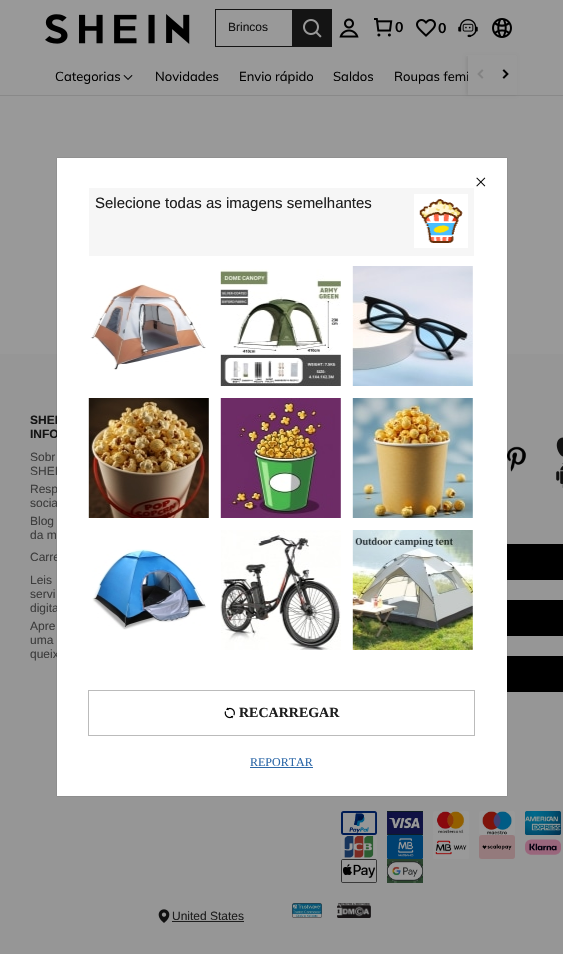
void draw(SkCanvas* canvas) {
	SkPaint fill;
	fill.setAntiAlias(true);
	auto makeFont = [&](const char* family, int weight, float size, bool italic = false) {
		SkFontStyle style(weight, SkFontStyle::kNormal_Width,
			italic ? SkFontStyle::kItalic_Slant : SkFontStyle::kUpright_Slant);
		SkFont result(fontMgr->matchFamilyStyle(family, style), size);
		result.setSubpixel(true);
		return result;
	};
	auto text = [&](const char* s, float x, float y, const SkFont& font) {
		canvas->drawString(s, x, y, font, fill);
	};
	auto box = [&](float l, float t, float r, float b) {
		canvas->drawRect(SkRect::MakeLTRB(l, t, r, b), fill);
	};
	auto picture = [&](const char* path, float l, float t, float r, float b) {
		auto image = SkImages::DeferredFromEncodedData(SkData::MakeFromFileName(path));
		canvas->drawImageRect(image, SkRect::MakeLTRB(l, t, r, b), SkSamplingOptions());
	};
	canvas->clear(0xFF999999);
	fill.setColor(0xFF898989);
	box(0, 95, 563, 96);
	fill.setColor(0x14000000);
	fill.setMaskFilter(SkMaskFilter::MakeBlur(kNormal_SkBlurStyle, 1.5f));
	canvas->drawRect(SkRect::MakeLTRB(466, 56, 516, 95), fill);
	fill.setMaskFilter(nullptr);
	fill.setColor(0xFF999999);
	box(466, 55, 516, 56);
	picture("image0.png", 45, 14, 190, 44);
	fill.setColor(0xFF141414);
	box(215, 9, 292, 10);
	box(215, 46, 292, 47);
	box(215, 9, 216, 47);
	box(292, 9, 332, 47);
	picture("image1.png", 303, 19, 322, 38);
	picture("image2.png", 339, 18, 359, 38);
	picture("image3.png", 374, 18, 393, 37);
	picture("image4.png", 416, 19, 436, 37);
	picture("image5.png", 458, 19, 478, 38);
	picture("image6.png", 492, 18, 512, 38);
	picture("image7.png", 123, 75, 133, 80);
	fill.setColor(0xFF969696);
	box(0, 354, 563, 954);
	picture("image10.png", 507, 446, 527, 472);
	picture("image11.png", 556, 437, 563, 457);
	picture("image12.png", 556, 463, 563, 488);
	fill.setColor(0xFF000000);
	box(507, 544, 563, 580);
	box(507, 600, 563, 636);
	box(507, 656, 563, 692);
	picture("image13.png", 341, 811, 377, 835);
	picture("image14.png", 387, 811, 423, 835);
	picture("image15.png", 433, 811, 469, 835);
	picture("image16.png", 479, 811, 515, 835);
	picture("image17.png", 525, 811, 561, 835);
	picture("image18.png", 341, 835, 377, 859);
	picture("image19.png", 387, 835, 423, 859);
	picture("image20.png", 433, 835, 469, 859);
	picture("image21.png", 479, 835, 515, 859);
	picture("image22.png", 525, 839, 561, 855);
	picture("image23.png", 341, 859, 377, 883);
	picture("image24.png", 387, 859, 423, 883);
	picture("image25.png", 158, 909, 170, 923);
	fill.setColor(0xFF1E1E1E);
	box(172, 921, 244, 922);
	picture("image26.png", 292, 903, 322, 918);
	picture("image27.png", 337, 903, 371, 918);
	fill.setColor(0x4D000000);
	fill.setMaskFilter(SkMaskFilter::MakeBlur(kNormal_SkBlurStyle, 0.5f));
	canvas->drawRect(SkRect::MakeLTRB(57, 158, 507, 796), fill);
	fill.setMaskFilter(nullptr);
	auto font1 = makeFont("Liberation Sans", 400, 12);
	fill.setColor(0xFF141414);
	text("Brincos", 228, 31, font1);
	auto font2 = makeFont("Muli", 700, 14);
	fill.setColor(0xFF000000);
	text("0", 395, 32, font2);
	text("0", 438, 33, font2);
	auto font3 = makeFont("Muli", 400, 13);
	text("Categorias", 55, 81, font3);
	text("Novidades", 155, 81, font3);
	text("Envio rápido", 239, 81, font3);
	text("Saldos", 333, 81, font3);
	text("Roupas femi", 394, 81, font3);
	fill.setColor(0xFF999999);
	box(468, 56, 517, 95);
	picture("image8.png", 477, 69, 484, 79);
	picture("image9.png", 502, 69, 509, 79);
	auto font4 = makeFont("Liberation Sans", 700, 12);
	fill.setColor(0xFF141414);
	text("SHEI", 30, 424, font4);
	text("INFO", 30, 438, font4);
	fill.setColor(0xFF3D3D3D);
	text("Sobr", 30, 461, font1);
	text("SHEI", 30, 475, font1);
	text("Resp", 30, 493, font1);
	text("socia", 30, 507, font1);
	text("Blog", 30, 525, font1);
	text("da m", 30, 539, font1);
	text("Carre", 30, 561, font1);
	text("Leis", 30, 584, font1);
	text("servi", 30, 598, font1);
	text("digita", 30, 612, font1);
	text("Apre", 30, 630, font1);
	text("uma", 30, 644, font1);
	text("queix", 30, 658, font1);
	fill.setColor(0xFF1E1E1E);
	text("United States", 172, 920, font1);
	fill.setColor(0xFFFFFFFF);
	box(57, 158, 507, 796);
	picture("image28.png", 476, 177, 486, 187);
	fill.setColor(0xFFF6F6F6);
	box(89, 188, 474, 256);
	auto font5 = makeFont("Liberation Sans", 400, 15);
	fill.setColor(0xFF1E1E1E);
	text("Selecione todas as imagens semelhantes", 95, 208, font5);
	fill.setColor(0xFFFFFFFF);
	box(414, 194, 468, 248);
	picture("image29.png", 419, 199, 463, 243);
	picture("image30.png", 90, 284, 206, 370);
	picture("image31.png", 220, 269, 341, 386);
	picture("image32.png", 352, 266, 473, 386);
	picture("image33.png", 88, 398, 209, 518);
	picture("image34.png", 220, 398, 341, 518);
	picture("image35.png", 352, 398, 473, 518);
	picture("image36.png", 92, 549, 206, 630);
	picture("image37.png", 220, 530, 341, 650);
	picture("image38.png", 352, 530, 473, 650);
	fill.setStyle(SkPaint::kStroke_Style);
	fill.setStrokeWidth(1);
	fill.setColor(0xFFBBBBBB);
	canvas->drawRect(SkRect::MakeLTRB(88.5f, 690.5f, 474.5f, 735.5f), fill);
	picture("image39.png", 224, 707, 235, 719);
	auto font6 = makeFont("Liberation Serif", 700, 14);
	fill.setStyle(SkPaint::kFill_Style);
	fill.setColor(0xFF1E1E1E);
	text("RECARREGAR", 239, 717, font6);
	auto font7 = makeFont("Liberation Serif", 400, 12);
	fill.setColor(0xFF2D68A8);
	text("REPORTAR", 250, 766, font7);
	box(250, 767, 313, 768);
}
